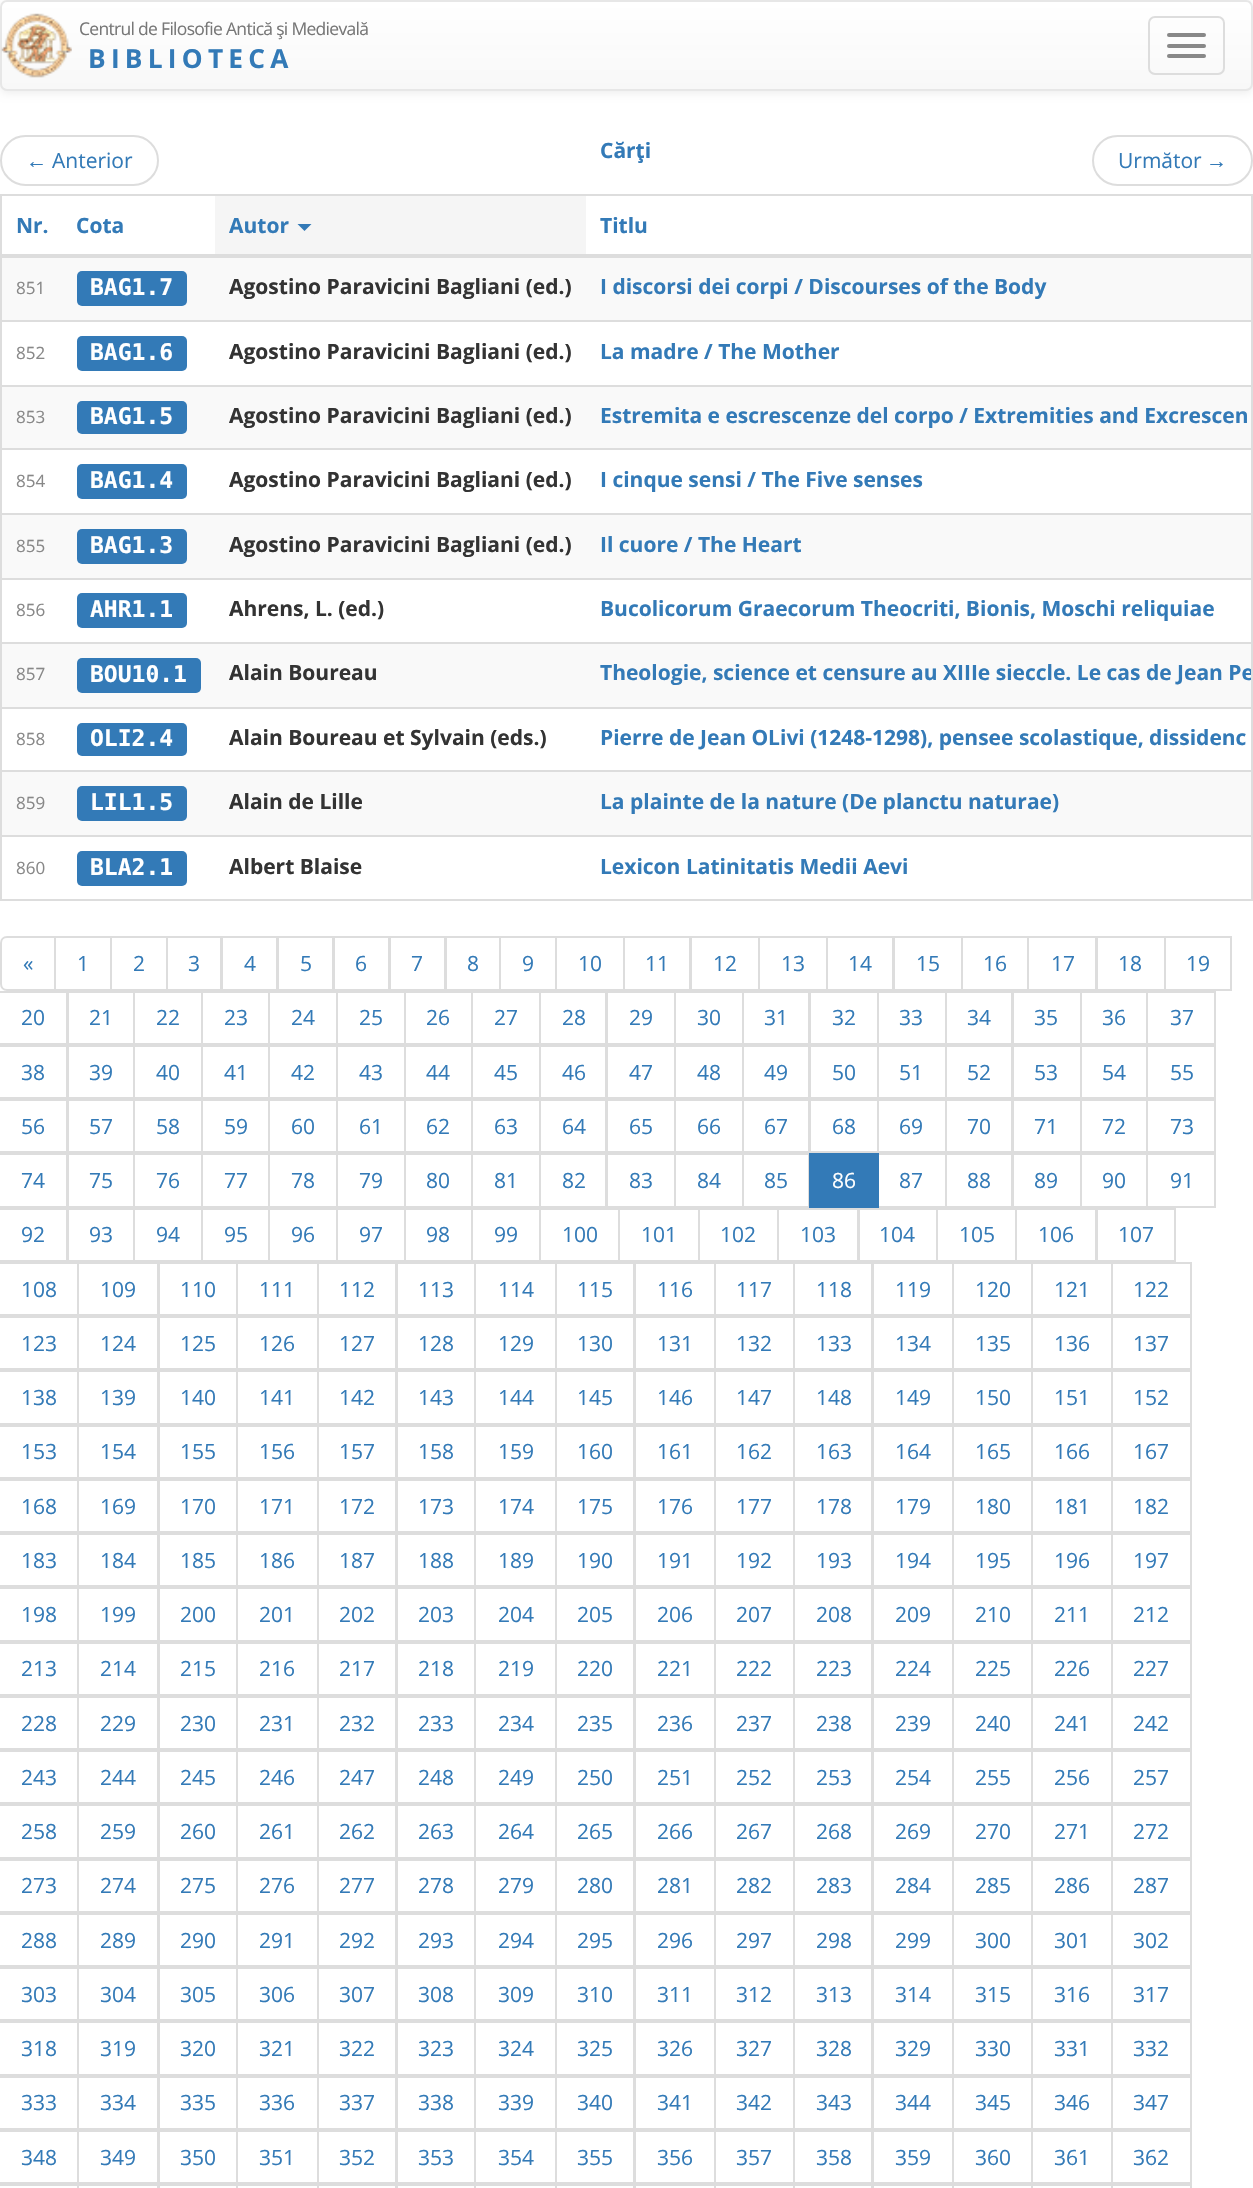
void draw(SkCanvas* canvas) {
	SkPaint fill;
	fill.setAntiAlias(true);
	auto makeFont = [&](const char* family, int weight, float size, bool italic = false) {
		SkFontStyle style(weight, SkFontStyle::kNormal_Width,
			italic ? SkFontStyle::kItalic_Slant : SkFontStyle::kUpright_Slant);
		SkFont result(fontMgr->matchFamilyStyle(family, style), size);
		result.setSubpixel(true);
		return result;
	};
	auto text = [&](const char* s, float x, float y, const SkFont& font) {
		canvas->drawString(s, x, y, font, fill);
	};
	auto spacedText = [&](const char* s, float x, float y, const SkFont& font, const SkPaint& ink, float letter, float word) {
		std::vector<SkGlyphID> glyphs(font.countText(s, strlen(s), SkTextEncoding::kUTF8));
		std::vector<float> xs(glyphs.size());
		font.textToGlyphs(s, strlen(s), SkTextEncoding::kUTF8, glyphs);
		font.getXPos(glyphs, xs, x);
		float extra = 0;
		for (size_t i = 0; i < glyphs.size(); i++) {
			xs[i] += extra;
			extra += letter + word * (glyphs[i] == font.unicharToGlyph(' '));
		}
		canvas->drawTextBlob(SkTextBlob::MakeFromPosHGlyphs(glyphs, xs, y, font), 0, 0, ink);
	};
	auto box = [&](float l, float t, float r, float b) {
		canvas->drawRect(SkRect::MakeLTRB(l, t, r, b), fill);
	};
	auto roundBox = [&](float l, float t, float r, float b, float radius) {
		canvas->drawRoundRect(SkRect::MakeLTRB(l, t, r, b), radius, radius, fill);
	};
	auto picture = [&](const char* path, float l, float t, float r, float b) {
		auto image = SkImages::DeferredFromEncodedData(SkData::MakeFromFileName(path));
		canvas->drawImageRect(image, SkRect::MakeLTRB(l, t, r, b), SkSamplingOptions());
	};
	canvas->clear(0xFFFFFFFF);
	fill.setColor(0x12000000);
	fill.setMaskFilter(SkMaskFilter::MakeBlur(kNormal_SkBlurStyle, 4.5f));
	canvas->drawRoundRect(SkRect::MakeLTRB(0, 2, 1253, 93), 7, 7, fill);
	fill.setMaskFilter(nullptr);
	canvas->save();
	canvas->clipPath(SkPathBuilder().moveTo(7, 0).lineTo(1246, 0).cubicTo(1250, 0, 1253, 3, 1253, 7).lineTo(1253, 84).cubicTo(1253, 88, 1250, 91, 1246, 91).lineTo(7, 91).cubicTo(3, 91, 0, 88, 0, 84).lineTo(0, 7).cubicTo(0, 3, 3, 0, 7, 0).close().detach(), true);
	{
		const SkColor colors[] = {0xFFFFFFFF, 0xFFF8F8F8};
		const float stops[] = {0, 1};
		const SkPoint ends[] = {{627, 1.7f}, {627, 89}};
		fill.setShader(SkGradientShader::MakeLinear(ends, colors, stops, 2, SkTileMode::kClamp));
		fill.setAlpha(255);
	}
	box(0, 2, 1253, 89);
	canvas->restore();
	fill.setStyle(SkPaint::kStroke_Style);
	fill.setStrokeWidth(2);
	fill.setShader(nullptr);
	fill.setColor(0xFFE7E7E7);
	canvas->drawRoundRect(SkRect::MakeLTRB(1, 1, 1252, 90), 6, 6, fill);
	picture("image0.png", 1, 13, 72, 78);
	fill.setColor(0xFFDDDDDD);
	canvas->drawRoundRect(SkRect::MakeLTRB(1149, 17, 1224, 74), 6, 6, fill);
	fill.setStyle(SkPaint::kFill_Style);
	fill.setColor(0xFF888888);
	roundBox(1167, 33, 1206, 37, 2);
	roundBox(1167, 44, 1206, 48, 2);
	roundBox(1167, 54, 1206, 58, 2);
	fill.setStyle(SkPaint::kStroke_Style);
	fill.setColor(0xFFDDDDDD);
	canvas->drawRoundRect(SkRect::MakeLTRB(1, 136, 158, 185), 24.5f, 24.5f, fill);
	canvas->drawRoundRect(SkRect::MakeLTRB(1093, 136, 1252, 185), 24.5f, 24.5f, fill);
	canvas->drawRect(SkRect::MakeLTRB(1, 195, 1252, 900), fill);
	fill.setStyle(SkPaint::kFill_Style);
	fill.setColor(0xFFF5F5F5);
	box(215, 196, 586, 254);
	fill.setColor(0xFF337AB7);
	canvas->drawPath(SkPathBuilder().moveTo(297.5f, 224).lineTo(311.5f, 224).lineTo(304.5f, 231).close().detach(), fill);
	fill.setColor(0xFFDDDDDD);
	box(2, 254, 1251, 258);
	fill.setColor(0xFFF9F9F9);
	box(2, 258, 1251, 320);
	fill.setColor(0xFF337AB7);
	roundBox(77, 271, 187, 306, 5);
	roundBox(77, 336, 187, 371, 5);
	fill.setColor(0xFFDDDDDD);
	box(2, 320, 1251, 322);
	fill.setColor(0xFFF9F9F9);
	box(2, 387, 1251, 448);
	fill.setColor(0xFF337AB7);
	roundBox(77, 401, 187, 434, 5);
	fill.setColor(0xFFDDDDDD);
	box(2, 385, 1251, 387);
	fill.setColor(0xFF337AB7);
	roundBox(77, 464, 187, 499, 5);
	fill.setColor(0xFFDDDDDD);
	box(2, 448, 1251, 450);
	fill.setColor(0xFFF9F9F9);
	box(2, 515, 1251, 578);
	fill.setColor(0xFF337AB7);
	roundBox(77, 529, 187, 564, 5);
	fill.setColor(0xFFDDDDDD);
	box(2, 513, 1251, 515);
	fill.setColor(0xFF337AB7);
	roundBox(77, 593, 187, 628, 5);
	fill.setColor(0xFFDDDDDD);
	box(2, 578, 1251, 580);
	fill.setColor(0xFFF9F9F9);
	box(2, 644, 1251, 707);
	fill.setColor(0xFF337AB7);
	roundBox(77, 658, 201, 693, 5);
	fill.setColor(0xFFDDDDDD);
	box(2, 642, 1251, 644);
	fill.setColor(0xFF337AB7);
	roundBox(77, 723, 187, 756, 5);
	fill.setColor(0xFFDDDDDD);
	box(2, 707, 1251, 709);
	fill.setColor(0xFFF9F9F9);
	box(2, 772, 1251, 835);
	fill.setColor(0xFF337AB7);
	roundBox(77, 786, 187, 821, 5);
	fill.setColor(0xFFDDDDDD);
	box(2, 770, 1251, 772);
	fill.setColor(0xFF337AB7);
	roundBox(77, 851, 187, 886, 5);
	fill.setColor(0xFFDDDDDD);
	box(2, 835, 1251, 837);
	fill.setStyle(SkPaint::kStroke_Style);
	canvas->drawPath(SkPathBuilder().moveTo(7, 937).lineTo(55, 937).lineTo(55, 990).lineTo(7, 990).cubicTo(3.5f, 990, 1, 987.5f, 1, 984).lineTo(1, 943).cubicTo(1, 939.5f, 3.5f, 937, 7, 937).close().detach(), fill);
	canvas->drawRect(SkRect::MakeLTRB(55, 937, 111, 990), fill);
	canvas->drawRect(SkRect::MakeLTRB(111, 937, 167, 990), fill);
	canvas->drawRect(SkRect::MakeLTRB(167, 937, 221, 990), fill);
	canvas->drawRect(SkRect::MakeLTRB(222, 937, 277, 990), fill);
	canvas->drawRect(SkRect::MakeLTRB(278, 937, 333, 990), fill);
	canvas->drawRect(SkRect::MakeLTRB(334, 937, 389, 990), fill);
	canvas->drawRect(SkRect::MakeLTRB(390, 937, 445, 990), fill);
	canvas->drawRect(SkRect::MakeLTRB(446, 937, 500, 990), fill);
	canvas->drawRect(SkRect::MakeLTRB(500, 937, 556, 990), fill);
	canvas->drawRect(SkRect::MakeLTRB(556, 937, 624, 990), fill);
	canvas->drawRect(SkRect::MakeLTRB(624, 937, 690, 990), fill);
	canvas->drawRect(SkRect::MakeLTRB(691, 937, 759, 990), fill);
	canvas->drawRect(SkRect::MakeLTRB(759, 937, 827, 990), fill);
	canvas->drawRect(SkRect::MakeLTRB(827, 937, 893, 990), fill);
	canvas->drawRect(SkRect::MakeLTRB(894, 937, 962, 990), fill);
	canvas->drawRect(SkRect::MakeLTRB(962, 937, 1028, 990), fill);
	canvas->drawRect(SkRect::MakeLTRB(1028, 937, 1096, 990), fill);
	canvas->drawRect(SkRect::MakeLTRB(1097, 937, 1165, 990), fill);
	canvas->drawRect(SkRect::MakeLTRB(1165, 937, 1231, 990), fill);
	canvas->drawRect(SkRect::MakeLTRB(-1, 992, 67, 1044), fill);
	canvas->drawRect(SkRect::MakeLTRB(68, 992, 134, 1044), fill);
	canvas->drawRect(SkRect::MakeLTRB(134, 992, 202, 1044), fill);
	canvas->drawRect(SkRect::MakeLTRB(202, 992, 269, 1044), fill);
	canvas->drawRect(SkRect::MakeLTRB(269, 992, 337, 1044), fill);
	canvas->drawRect(SkRect::MakeLTRB(337, 992, 405, 1044), fill);
	canvas->drawRect(SkRect::MakeLTRB(405, 992, 472, 1044), fill);
	canvas->drawRect(SkRect::MakeLTRB(472, 992, 540, 1044), fill);
	canvas->drawRect(SkRect::MakeLTRB(540, 992, 606, 1044), fill);
	canvas->drawRect(SkRect::MakeLTRB(607, 992, 675, 1044), fill);
	canvas->drawRect(SkRect::MakeLTRB(675, 992, 743, 1044), fill);
	canvas->drawRect(SkRect::MakeLTRB(743, 992, 809, 1044), fill);
	canvas->drawRect(SkRect::MakeLTRB(810, 992, 878, 1044), fill);
	canvas->drawRect(SkRect::MakeLTRB(878, 992, 946, 1044), fill);
	canvas->drawRect(SkRect::MakeLTRB(946, 992, 1012, 1044), fill);
	canvas->drawRect(SkRect::MakeLTRB(1013, 992, 1081, 1044), fill);
	canvas->drawRect(SkRect::MakeLTRB(1081, 992, 1147, 1044), fill);
	canvas->drawRect(SkRect::MakeLTRB(1147, 992, 1215, 1044), fill);
	canvas->drawRect(SkRect::MakeLTRB(-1, 1046, 67, 1098), fill);
	canvas->drawRect(SkRect::MakeLTRB(68, 1046, 134, 1098), fill);
	canvas->drawRect(SkRect::MakeLTRB(134, 1046, 202, 1098), fill);
	canvas->drawRect(SkRect::MakeLTRB(202, 1046, 269, 1098), fill);
	canvas->drawRect(SkRect::MakeLTRB(269, 1046, 337, 1098), fill);
	canvas->drawRect(SkRect::MakeLTRB(337, 1046, 405, 1098), fill);
	canvas->drawRect(SkRect::MakeLTRB(405, 1046, 472, 1098), fill);
	canvas->drawRect(SkRect::MakeLTRB(472, 1046, 540, 1098), fill);
	canvas->drawRect(SkRect::MakeLTRB(540, 1046, 606, 1098), fill);
	canvas->drawRect(SkRect::MakeLTRB(607, 1046, 675, 1098), fill);
	canvas->drawRect(SkRect::MakeLTRB(675, 1046, 743, 1098), fill);
	canvas->drawRect(SkRect::MakeLTRB(743, 1046, 809, 1098), fill);
	canvas->drawRect(SkRect::MakeLTRB(810, 1046, 878, 1098), fill);
	canvas->drawRect(SkRect::MakeLTRB(878, 1046, 946, 1098), fill);
	canvas->drawRect(SkRect::MakeLTRB(946, 1046, 1012, 1098), fill);
	canvas->drawRect(SkRect::MakeLTRB(1013, 1046, 1081, 1098), fill);
	canvas->drawRect(SkRect::MakeLTRB(1081, 1046, 1147, 1098), fill);
	canvas->drawRect(SkRect::MakeLTRB(1147, 1046, 1215, 1098), fill);
	canvas->drawRect(SkRect::MakeLTRB(-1, 1100, 67, 1152), fill);
	canvas->drawRect(SkRect::MakeLTRB(68, 1100, 134, 1152), fill);
	canvas->drawRect(SkRect::MakeLTRB(134, 1100, 202, 1152), fill);
	canvas->drawRect(SkRect::MakeLTRB(202, 1100, 269, 1152), fill);
	canvas->drawRect(SkRect::MakeLTRB(269, 1100, 337, 1152), fill);
	canvas->drawRect(SkRect::MakeLTRB(337, 1100, 405, 1152), fill);
	canvas->drawRect(SkRect::MakeLTRB(405, 1100, 472, 1152), fill);
	canvas->drawRect(SkRect::MakeLTRB(472, 1100, 540, 1152), fill);
	canvas->drawRect(SkRect::MakeLTRB(540, 1100, 606, 1152), fill);
	canvas->drawRect(SkRect::MakeLTRB(607, 1100, 675, 1152), fill);
	canvas->drawRect(SkRect::MakeLTRB(675, 1100, 743, 1152), fill);
	canvas->drawRect(SkRect::MakeLTRB(743, 1100, 809, 1152), fill);
	canvas->drawRect(SkRect::MakeLTRB(810, 1100, 878, 1152), fill);
	canvas->drawRect(SkRect::MakeLTRB(878, 1100, 946, 1152), fill);
	canvas->drawRect(SkRect::MakeLTRB(946, 1100, 1012, 1152), fill);
	canvas->drawRect(SkRect::MakeLTRB(1013, 1100, 1081, 1152), fill);
	canvas->drawRect(SkRect::MakeLTRB(1081, 1100, 1147, 1152), fill);
	canvas->drawRect(SkRect::MakeLTRB(1147, 1100, 1215, 1152), fill);
	canvas->drawRect(SkRect::MakeLTRB(-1, 1154, 67, 1207), fill);
	canvas->drawRect(SkRect::MakeLTRB(68, 1154, 134, 1207), fill);
	canvas->drawRect(SkRect::MakeLTRB(134, 1154, 202, 1207), fill);
	canvas->drawRect(SkRect::MakeLTRB(202, 1154, 269, 1207), fill);
	canvas->drawRect(SkRect::MakeLTRB(269, 1154, 337, 1207), fill);
	canvas->drawRect(SkRect::MakeLTRB(337, 1154, 405, 1207), fill);
	canvas->drawRect(SkRect::MakeLTRB(405, 1154, 472, 1207), fill);
	canvas->drawRect(SkRect::MakeLTRB(472, 1154, 540, 1207), fill);
	canvas->drawRect(SkRect::MakeLTRB(540, 1154, 606, 1207), fill);
	canvas->drawRect(SkRect::MakeLTRB(607, 1154, 675, 1207), fill);
	canvas->drawRect(SkRect::MakeLTRB(675, 1154, 743, 1207), fill);
	canvas->drawRect(SkRect::MakeLTRB(743, 1154, 809, 1207), fill);
	canvas->drawRect(SkRect::MakeLTRB(878, 1154, 946, 1207), fill);
	fill.setStyle(SkPaint::kFill_Style);
	fill.setColor(0xFF337AB7);
	box(809, 1153, 879, 1208);
	fill.setStyle(SkPaint::kStroke_Style);
	fill.setColor(0xFFDDDDDD);
	canvas->drawRect(SkRect::MakeLTRB(946, 1154, 1012, 1207), fill);
	canvas->drawRect(SkRect::MakeLTRB(1013, 1154, 1081, 1207), fill);
	canvas->drawRect(SkRect::MakeLTRB(1081, 1154, 1147, 1207), fill);
	canvas->drawRect(SkRect::MakeLTRB(1147, 1154, 1215, 1207), fill);
	canvas->drawRect(SkRect::MakeLTRB(-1, 1209, 67, 1261), fill);
	canvas->drawRect(SkRect::MakeLTRB(68, 1209, 134, 1261), fill);
	canvas->drawRect(SkRect::MakeLTRB(134, 1209, 202, 1261), fill);
	canvas->drawRect(SkRect::MakeLTRB(202, 1209, 269, 1261), fill);
	canvas->drawRect(SkRect::MakeLTRB(269, 1209, 337, 1261), fill);
	canvas->drawRect(SkRect::MakeLTRB(337, 1209, 405, 1261), fill);
	canvas->drawRect(SkRect::MakeLTRB(405, 1209, 472, 1261), fill);
	canvas->drawRect(SkRect::MakeLTRB(472, 1209, 540, 1261), fill);
	canvas->drawRect(SkRect::MakeLTRB(540, 1209, 619, 1261), fill);
	canvas->drawRect(SkRect::MakeLTRB(619, 1209, 699, 1261), fill);
	canvas->drawRect(SkRect::MakeLTRB(699, 1209, 778, 1261), fill);
	canvas->drawRect(SkRect::MakeLTRB(778, 1209, 858, 1261), fill);
	canvas->drawRect(SkRect::MakeLTRB(859, 1209, 937, 1261), fill);
	canvas->drawRect(SkRect::MakeLTRB(937, 1209, 1016, 1261), fill);
	canvas->drawRect(SkRect::MakeLTRB(1016, 1209, 1096, 1261), fill);
	canvas->drawRect(SkRect::MakeLTRB(1097, 1209, 1175, 1261), fill);
	canvas->drawRect(SkRect::MakeLTRB(-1, 1263, 78, 1315), fill);
	canvas->drawRect(SkRect::MakeLTRB(78, 1263, 158, 1315), fill);
	canvas->drawRect(SkRect::MakeLTRB(159, 1263, 237, 1315), fill);
	canvas->drawRect(SkRect::MakeLTRB(237, 1263, 318, 1315), fill);
	canvas->drawRect(SkRect::MakeLTRB(318, 1263, 396, 1315), fill);
	canvas->drawRect(SkRect::MakeLTRB(397, 1263, 475, 1315), fill);
	canvas->drawRect(SkRect::MakeLTRB(475, 1263, 556, 1315), fill);
	canvas->drawRect(SkRect::MakeLTRB(556, 1263, 634, 1315), fill);
	canvas->drawRect(SkRect::MakeLTRB(635, 1263, 715, 1315), fill);
	canvas->drawRect(SkRect::MakeLTRB(715, 1263, 794, 1315), fill);
	canvas->drawRect(SkRect::MakeLTRB(794, 1263, 872, 1315), fill);
	canvas->drawRect(SkRect::MakeLTRB(873, 1263, 953, 1315), fill);
	canvas->drawRect(SkRect::MakeLTRB(953, 1263, 1032, 1315), fill);
	canvas->drawRect(SkRect::MakeLTRB(1032, 1263, 1112, 1315), fill);
	canvas->drawRect(SkRect::MakeLTRB(1112, 1263, 1191, 1315), fill);
	canvas->drawRect(SkRect::MakeLTRB(-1, 1317, 78, 1369), fill);
	canvas->drawRect(SkRect::MakeLTRB(78, 1317, 158, 1369), fill);
	canvas->drawRect(SkRect::MakeLTRB(159, 1317, 237, 1369), fill);
	canvas->drawRect(SkRect::MakeLTRB(237, 1317, 318, 1369), fill);
	canvas->drawRect(SkRect::MakeLTRB(318, 1317, 396, 1369), fill);
	canvas->drawRect(SkRect::MakeLTRB(397, 1317, 475, 1369), fill);
	canvas->drawRect(SkRect::MakeLTRB(475, 1317, 556, 1369), fill);
	canvas->drawRect(SkRect::MakeLTRB(556, 1317, 634, 1369), fill);
	canvas->drawRect(SkRect::MakeLTRB(635, 1317, 715, 1369), fill);
	canvas->drawRect(SkRect::MakeLTRB(715, 1317, 794, 1369), fill);
	canvas->drawRect(SkRect::MakeLTRB(794, 1317, 872, 1369), fill);
	canvas->drawRect(SkRect::MakeLTRB(873, 1317, 953, 1369), fill);
	canvas->drawRect(SkRect::MakeLTRB(953, 1317, 1032, 1369), fill);
	canvas->drawRect(SkRect::MakeLTRB(1032, 1317, 1112, 1369), fill);
	canvas->drawRect(SkRect::MakeLTRB(1112, 1317, 1191, 1369), fill);
	canvas->drawRect(SkRect::MakeLTRB(-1, 1371, 78, 1424), fill);
	canvas->drawRect(SkRect::MakeLTRB(78, 1371, 158, 1424), fill);
	canvas->drawRect(SkRect::MakeLTRB(159, 1371, 237, 1424), fill);
	canvas->drawRect(SkRect::MakeLTRB(237, 1371, 318, 1424), fill);
	canvas->drawRect(SkRect::MakeLTRB(318, 1371, 396, 1424), fill);
	canvas->drawRect(SkRect::MakeLTRB(397, 1371, 475, 1424), fill);
	canvas->drawRect(SkRect::MakeLTRB(475, 1371, 556, 1424), fill);
	canvas->drawRect(SkRect::MakeLTRB(556, 1371, 634, 1424), fill);
	canvas->drawRect(SkRect::MakeLTRB(635, 1371, 715, 1424), fill);
	canvas->drawRect(SkRect::MakeLTRB(715, 1371, 794, 1424), fill);
	canvas->drawRect(SkRect::MakeLTRB(794, 1371, 872, 1424), fill);
	canvas->drawRect(SkRect::MakeLTRB(873, 1371, 953, 1424), fill);
	canvas->drawRect(SkRect::MakeLTRB(953, 1371, 1032, 1424), fill);
	canvas->drawRect(SkRect::MakeLTRB(1032, 1371, 1112, 1424), fill);
	canvas->drawRect(SkRect::MakeLTRB(1112, 1371, 1191, 1424), fill);
	canvas->drawRect(SkRect::MakeLTRB(-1, 1426, 78, 1478), fill);
	canvas->drawRect(SkRect::MakeLTRB(78, 1426, 158, 1478), fill);
	canvas->drawRect(SkRect::MakeLTRB(159, 1426, 237, 1478), fill);
	canvas->drawRect(SkRect::MakeLTRB(237, 1426, 318, 1478), fill);
	canvas->drawRect(SkRect::MakeLTRB(318, 1426, 396, 1478), fill);
	canvas->drawRect(SkRect::MakeLTRB(397, 1426, 475, 1478), fill);
	canvas->drawRect(SkRect::MakeLTRB(475, 1426, 556, 1478), fill);
	canvas->drawRect(SkRect::MakeLTRB(556, 1426, 634, 1478), fill);
	canvas->drawRect(SkRect::MakeLTRB(635, 1426, 715, 1478), fill);
	canvas->drawRect(SkRect::MakeLTRB(715, 1426, 794, 1478), fill);
	canvas->drawRect(SkRect::MakeLTRB(794, 1426, 872, 1478), fill);
	canvas->drawRect(SkRect::MakeLTRB(873, 1426, 953, 1478), fill);
	canvas->drawRect(SkRect::MakeLTRB(953, 1426, 1032, 1478), fill);
	canvas->drawRect(SkRect::MakeLTRB(1032, 1426, 1112, 1478), fill);
	canvas->drawRect(SkRect::MakeLTRB(1112, 1426, 1191, 1478), fill);
	canvas->drawRect(SkRect::MakeLTRB(-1, 1480, 78, 1532), fill);
	canvas->drawRect(SkRect::MakeLTRB(78, 1480, 158, 1532), fill);
	canvas->drawRect(SkRect::MakeLTRB(159, 1480, 237, 1532), fill);
	canvas->drawRect(SkRect::MakeLTRB(237, 1480, 318, 1532), fill);
	canvas->drawRect(SkRect::MakeLTRB(318, 1480, 396, 1532), fill);
	canvas->drawRect(SkRect::MakeLTRB(397, 1480, 475, 1532), fill);
	canvas->drawRect(SkRect::MakeLTRB(475, 1480, 556, 1532), fill);
	canvas->drawRect(SkRect::MakeLTRB(556, 1480, 634, 1532), fill);
	canvas->drawRect(SkRect::MakeLTRB(635, 1480, 715, 1532), fill);
	canvas->drawRect(SkRect::MakeLTRB(715, 1480, 794, 1532), fill);
	canvas->drawRect(SkRect::MakeLTRB(794, 1480, 872, 1532), fill);
	canvas->drawRect(SkRect::MakeLTRB(873, 1480, 953, 1532), fill);
	canvas->drawRect(SkRect::MakeLTRB(953, 1480, 1032, 1532), fill);
	canvas->drawRect(SkRect::MakeLTRB(1032, 1480, 1112, 1532), fill);
	canvas->drawRect(SkRect::MakeLTRB(1112, 1480, 1191, 1532), fill);
	canvas->drawRect(SkRect::MakeLTRB(-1, 1534, 78, 1586), fill);
	canvas->drawRect(SkRect::MakeLTRB(78, 1534, 158, 1586), fill);
	canvas->drawRect(SkRect::MakeLTRB(159, 1534, 237, 1586), fill);
	canvas->drawRect(SkRect::MakeLTRB(237, 1534, 318, 1586), fill);
	canvas->drawRect(SkRect::MakeLTRB(318, 1534, 396, 1586), fill);
	canvas->drawRect(SkRect::MakeLTRB(397, 1534, 475, 1586), fill);
	canvas->drawRect(SkRect::MakeLTRB(475, 1534, 556, 1586), fill);
	canvas->drawRect(SkRect::MakeLTRB(556, 1534, 634, 1586), fill);
	canvas->drawRect(SkRect::MakeLTRB(635, 1534, 715, 1586), fill);
	canvas->drawRect(SkRect::MakeLTRB(715, 1534, 794, 1586), fill);
	canvas->drawRect(SkRect::MakeLTRB(794, 1534, 872, 1586), fill);
	canvas->drawRect(SkRect::MakeLTRB(873, 1534, 953, 1586), fill);
	canvas->drawRect(SkRect::MakeLTRB(953, 1534, 1032, 1586), fill);
	canvas->drawRect(SkRect::MakeLTRB(1032, 1534, 1112, 1586), fill);
	canvas->drawRect(SkRect::MakeLTRB(1112, 1534, 1191, 1586), fill);
	canvas->drawRect(SkRect::MakeLTRB(-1, 1588, 78, 1641), fill);
	canvas->drawRect(SkRect::MakeLTRB(78, 1588, 158, 1641), fill);
	canvas->drawRect(SkRect::MakeLTRB(159, 1588, 237, 1641), fill);
	canvas->drawRect(SkRect::MakeLTRB(237, 1588, 318, 1641), fill);
	canvas->drawRect(SkRect::MakeLTRB(318, 1588, 396, 1641), fill);
	canvas->drawRect(SkRect::MakeLTRB(397, 1588, 475, 1641), fill);
	canvas->drawRect(SkRect::MakeLTRB(475, 1588, 556, 1641), fill);
	canvas->drawRect(SkRect::MakeLTRB(556, 1588, 634, 1641), fill);
	canvas->drawRect(SkRect::MakeLTRB(635, 1588, 715, 1641), fill);
	canvas->drawRect(SkRect::MakeLTRB(715, 1588, 794, 1641), fill);
	canvas->drawRect(SkRect::MakeLTRB(794, 1588, 872, 1641), fill);
	canvas->drawRect(SkRect::MakeLTRB(873, 1588, 953, 1641), fill);
	canvas->drawRect(SkRect::MakeLTRB(953, 1588, 1032, 1641), fill);
	canvas->drawRect(SkRect::MakeLTRB(1032, 1588, 1112, 1641), fill);
	canvas->drawRect(SkRect::MakeLTRB(1112, 1588, 1191, 1641), fill);
	canvas->drawRect(SkRect::MakeLTRB(-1, 1643, 78, 1695), fill);
	canvas->drawRect(SkRect::MakeLTRB(78, 1643, 158, 1695), fill);
	canvas->drawRect(SkRect::MakeLTRB(159, 1643, 237, 1695), fill);
	canvas->drawRect(SkRect::MakeLTRB(237, 1643, 318, 1695), fill);
	canvas->drawRect(SkRect::MakeLTRB(318, 1643, 396, 1695), fill);
	canvas->drawRect(SkRect::MakeLTRB(397, 1643, 475, 1695), fill);
	canvas->drawRect(SkRect::MakeLTRB(475, 1643, 556, 1695), fill);
	canvas->drawRect(SkRect::MakeLTRB(556, 1643, 634, 1695), fill);
	canvas->drawRect(SkRect::MakeLTRB(635, 1643, 715, 1695), fill);
	canvas->drawRect(SkRect::MakeLTRB(715, 1643, 794, 1695), fill);
	canvas->drawRect(SkRect::MakeLTRB(794, 1643, 872, 1695), fill);
	canvas->drawRect(SkRect::MakeLTRB(873, 1643, 953, 1695), fill);
	canvas->drawRect(SkRect::MakeLTRB(953, 1643, 1032, 1695), fill);
	canvas->drawRect(SkRect::MakeLTRB(1032, 1643, 1112, 1695), fill);
	canvas->drawRect(SkRect::MakeLTRB(1112, 1643, 1191, 1695), fill);
	canvas->drawRect(SkRect::MakeLTRB(-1, 1697, 78, 1749), fill);
	canvas->drawRect(SkRect::MakeLTRB(78, 1697, 158, 1749), fill);
	canvas->drawRect(SkRect::MakeLTRB(159, 1697, 237, 1749), fill);
	canvas->drawRect(SkRect::MakeLTRB(237, 1697, 318, 1749), fill);
	canvas->drawRect(SkRect::MakeLTRB(318, 1697, 396, 1749), fill);
	canvas->drawRect(SkRect::MakeLTRB(397, 1697, 475, 1749), fill);
	canvas->drawRect(SkRect::MakeLTRB(475, 1697, 556, 1749), fill);
	canvas->drawRect(SkRect::MakeLTRB(556, 1697, 634, 1749), fill);
	canvas->drawRect(SkRect::MakeLTRB(635, 1697, 715, 1749), fill);
	canvas->drawRect(SkRect::MakeLTRB(715, 1697, 794, 1749), fill);
	canvas->drawRect(SkRect::MakeLTRB(794, 1697, 872, 1749), fill);
	canvas->drawRect(SkRect::MakeLTRB(873, 1697, 953, 1749), fill);
	canvas->drawRect(SkRect::MakeLTRB(953, 1697, 1032, 1749), fill);
	canvas->drawRect(SkRect::MakeLTRB(1032, 1697, 1112, 1749), fill);
	canvas->drawRect(SkRect::MakeLTRB(1112, 1697, 1191, 1749), fill);
	canvas->drawRect(SkRect::MakeLTRB(-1, 1751, 78, 1803), fill);
	canvas->drawRect(SkRect::MakeLTRB(78, 1751, 158, 1803), fill);
	canvas->drawRect(SkRect::MakeLTRB(159, 1751, 237, 1803), fill);
	canvas->drawRect(SkRect::MakeLTRB(237, 1751, 318, 1803), fill);
	canvas->drawRect(SkRect::MakeLTRB(318, 1751, 396, 1803), fill);
	canvas->drawRect(SkRect::MakeLTRB(397, 1751, 475, 1803), fill);
	canvas->drawRect(SkRect::MakeLTRB(475, 1751, 556, 1803), fill);
	canvas->drawRect(SkRect::MakeLTRB(556, 1751, 634, 1803), fill);
	canvas->drawRect(SkRect::MakeLTRB(635, 1751, 715, 1803), fill);
	canvas->drawRect(SkRect::MakeLTRB(715, 1751, 794, 1803), fill);
	canvas->drawRect(SkRect::MakeLTRB(794, 1751, 872, 1803), fill);
	canvas->drawRect(SkRect::MakeLTRB(873, 1751, 953, 1803), fill);
	canvas->drawRect(SkRect::MakeLTRB(953, 1751, 1032, 1803), fill);
	canvas->drawRect(SkRect::MakeLTRB(1032, 1751, 1112, 1803), fill);
	canvas->drawRect(SkRect::MakeLTRB(1112, 1751, 1191, 1803), fill);
	canvas->drawRect(SkRect::MakeLTRB(-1, 1805, 78, 1858), fill);
	canvas->drawRect(SkRect::MakeLTRB(78, 1805, 158, 1858), fill);
	canvas->drawRect(SkRect::MakeLTRB(159, 1805, 237, 1858), fill);
	canvas->drawRect(SkRect::MakeLTRB(237, 1805, 318, 1858), fill);
	canvas->drawRect(SkRect::MakeLTRB(318, 1805, 396, 1858), fill);
	canvas->drawRect(SkRect::MakeLTRB(397, 1805, 475, 1858), fill);
	canvas->drawRect(SkRect::MakeLTRB(475, 1805, 556, 1858), fill);
	canvas->drawRect(SkRect::MakeLTRB(556, 1805, 634, 1858), fill);
	canvas->drawRect(SkRect::MakeLTRB(635, 1805, 715, 1858), fill);
	canvas->drawRect(SkRect::MakeLTRB(715, 1805, 794, 1858), fill);
	canvas->drawRect(SkRect::MakeLTRB(794, 1805, 872, 1858), fill);
	canvas->drawRect(SkRect::MakeLTRB(873, 1805, 953, 1858), fill);
	canvas->drawRect(SkRect::MakeLTRB(953, 1805, 1032, 1858), fill);
	canvas->drawRect(SkRect::MakeLTRB(1032, 1805, 1112, 1858), fill);
	canvas->drawRect(SkRect::MakeLTRB(1112, 1805, 1191, 1858), fill);
	canvas->drawRect(SkRect::MakeLTRB(-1, 1860, 78, 1912), fill);
	canvas->drawRect(SkRect::MakeLTRB(78, 1860, 158, 1912), fill);
	canvas->drawRect(SkRect::MakeLTRB(159, 1860, 237, 1912), fill);
	canvas->drawRect(SkRect::MakeLTRB(237, 1860, 318, 1912), fill);
	canvas->drawRect(SkRect::MakeLTRB(318, 1860, 396, 1912), fill);
	canvas->drawRect(SkRect::MakeLTRB(397, 1860, 475, 1912), fill);
	canvas->drawRect(SkRect::MakeLTRB(475, 1860, 556, 1912), fill);
	canvas->drawRect(SkRect::MakeLTRB(556, 1860, 634, 1912), fill);
	canvas->drawRect(SkRect::MakeLTRB(635, 1860, 715, 1912), fill);
	canvas->drawRect(SkRect::MakeLTRB(715, 1860, 794, 1912), fill);
	canvas->drawRect(SkRect::MakeLTRB(794, 1860, 872, 1912), fill);
	canvas->drawRect(SkRect::MakeLTRB(873, 1860, 953, 1912), fill);
	canvas->drawRect(SkRect::MakeLTRB(953, 1860, 1032, 1912), fill);
	canvas->drawRect(SkRect::MakeLTRB(1032, 1860, 1112, 1912), fill);
	canvas->drawRect(SkRect::MakeLTRB(1112, 1860, 1191, 1912), fill);
	canvas->drawRect(SkRect::MakeLTRB(-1, 1914, 78, 1966), fill);
	canvas->drawRect(SkRect::MakeLTRB(78, 1914, 158, 1966), fill);
	canvas->drawRect(SkRect::MakeLTRB(159, 1914, 237, 1966), fill);
	canvas->drawRect(SkRect::MakeLTRB(237, 1914, 318, 1966), fill);
	canvas->drawRect(SkRect::MakeLTRB(318, 1914, 396, 1966), fill);
	canvas->drawRect(SkRect::MakeLTRB(397, 1914, 475, 1966), fill);
	canvas->drawRect(SkRect::MakeLTRB(475, 1914, 556, 1966), fill);
	canvas->drawRect(SkRect::MakeLTRB(556, 1914, 634, 1966), fill);
	canvas->drawRect(SkRect::MakeLTRB(635, 1914, 715, 1966), fill);
	canvas->drawRect(SkRect::MakeLTRB(715, 1914, 794, 1966), fill);
	canvas->drawRect(SkRect::MakeLTRB(794, 1914, 872, 1966), fill);
	canvas->drawRect(SkRect::MakeLTRB(873, 1914, 953, 1966), fill);
	canvas->drawRect(SkRect::MakeLTRB(953, 1914, 1032, 1966), fill);
	canvas->drawRect(SkRect::MakeLTRB(1032, 1914, 1112, 1966), fill);
	canvas->drawRect(SkRect::MakeLTRB(1112, 1914, 1191, 1966), fill);
	canvas->drawRect(SkRect::MakeLTRB(-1, 1968, 78, 2020), fill);
	canvas->drawRect(SkRect::MakeLTRB(78, 1968, 158, 2020), fill);
	canvas->drawRect(SkRect::MakeLTRB(159, 1968, 237, 2020), fill);
	canvas->drawRect(SkRect::MakeLTRB(237, 1968, 318, 2020), fill);
	canvas->drawRect(SkRect::MakeLTRB(318, 1968, 396, 2020), fill);
	canvas->drawRect(SkRect::MakeLTRB(397, 1968, 475, 2020), fill);
	canvas->drawRect(SkRect::MakeLTRB(475, 1968, 556, 2020), fill);
	canvas->drawRect(SkRect::MakeLTRB(556, 1968, 634, 2020), fill);
	canvas->drawRect(SkRect::MakeLTRB(635, 1968, 715, 2020), fill);
	canvas->drawRect(SkRect::MakeLTRB(715, 1968, 794, 2020), fill);
	canvas->drawRect(SkRect::MakeLTRB(794, 1968, 872, 2020), fill);
	canvas->drawRect(SkRect::MakeLTRB(873, 1968, 953, 2020), fill);
	canvas->drawRect(SkRect::MakeLTRB(953, 1968, 1032, 2020), fill);
	canvas->drawRect(SkRect::MakeLTRB(1032, 1968, 1112, 2020), fill);
	canvas->drawRect(SkRect::MakeLTRB(1112, 1968, 1191, 2020), fill);
	canvas->drawRect(SkRect::MakeLTRB(-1, 2022, 78, 2075), fill);
	canvas->drawRect(SkRect::MakeLTRB(78, 2022, 158, 2075), fill);
	canvas->drawRect(SkRect::MakeLTRB(159, 2022, 237, 2075), fill);
	canvas->drawRect(SkRect::MakeLTRB(237, 2022, 318, 2075), fill);
	canvas->drawRect(SkRect::MakeLTRB(318, 2022, 396, 2075), fill);
	canvas->drawRect(SkRect::MakeLTRB(397, 2022, 475, 2075), fill);
	canvas->drawRect(SkRect::MakeLTRB(475, 2022, 556, 2075), fill);
	canvas->drawRect(SkRect::MakeLTRB(556, 2022, 634, 2075), fill);
	canvas->drawRect(SkRect::MakeLTRB(635, 2022, 715, 2075), fill);
	canvas->drawRect(SkRect::MakeLTRB(715, 2022, 794, 2075), fill);
	canvas->drawRect(SkRect::MakeLTRB(794, 2022, 872, 2075), fill);
	canvas->drawRect(SkRect::MakeLTRB(873, 2022, 953, 2075), fill);
	canvas->drawRect(SkRect::MakeLTRB(953, 2022, 1032, 2075), fill);
	canvas->drawRect(SkRect::MakeLTRB(1032, 2022, 1112, 2075), fill);
	canvas->drawRect(SkRect::MakeLTRB(1112, 2022, 1191, 2075), fill);
	canvas->drawRect(SkRect::MakeLTRB(-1, 2077, 78, 2129), fill);
	canvas->drawRect(SkRect::MakeLTRB(78, 2077, 158, 2129), fill);
	canvas->drawRect(SkRect::MakeLTRB(159, 2077, 237, 2129), fill);
	canvas->drawRect(SkRect::MakeLTRB(237, 2077, 318, 2129), fill);
	canvas->drawRect(SkRect::MakeLTRB(318, 2077, 396, 2129), fill);
	canvas->drawRect(SkRect::MakeLTRB(397, 2077, 475, 2129), fill);
	canvas->drawRect(SkRect::MakeLTRB(475, 2077, 556, 2129), fill);
	canvas->drawRect(SkRect::MakeLTRB(556, 2077, 634, 2129), fill);
	canvas->drawRect(SkRect::MakeLTRB(635, 2077, 715, 2129), fill);
	canvas->drawRect(SkRect::MakeLTRB(715, 2077, 794, 2129), fill);
	canvas->drawRect(SkRect::MakeLTRB(794, 2077, 872, 2129), fill);
	canvas->drawRect(SkRect::MakeLTRB(873, 2077, 953, 2129), fill);
	canvas->drawRect(SkRect::MakeLTRB(953, 2077, 1032, 2129), fill);
	canvas->drawRect(SkRect::MakeLTRB(1032, 2077, 1112, 2129), fill);
	canvas->drawRect(SkRect::MakeLTRB(1112, 2077, 1191, 2129), fill);
	canvas->drawRect(SkRect::MakeLTRB(-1, 2131, 78, 2183), fill);
	canvas->drawRect(SkRect::MakeLTRB(78, 2131, 158, 2183), fill);
	canvas->drawRect(SkRect::MakeLTRB(159, 2131, 237, 2183), fill);
	canvas->drawRect(SkRect::MakeLTRB(237, 2131, 318, 2183), fill);
	canvas->drawRect(SkRect::MakeLTRB(318, 2131, 396, 2183), fill);
	canvas->drawRect(SkRect::MakeLTRB(397, 2131, 475, 2183), fill);
	canvas->drawRect(SkRect::MakeLTRB(475, 2131, 556, 2183), fill);
	canvas->drawRect(SkRect::MakeLTRB(556, 2131, 634, 2183), fill);
	canvas->drawRect(SkRect::MakeLTRB(635, 2131, 715, 2183), fill);
	canvas->drawRect(SkRect::MakeLTRB(715, 2131, 794, 2183), fill);
	canvas->drawRect(SkRect::MakeLTRB(794, 2131, 872, 2183), fill);
	canvas->drawRect(SkRect::MakeLTRB(873, 2131, 953, 2183), fill);
	canvas->drawRect(SkRect::MakeLTRB(953, 2131, 1032, 2183), fill);
	canvas->drawRect(SkRect::MakeLTRB(1032, 2131, 1112, 2183), fill);
	canvas->drawRect(SkRect::MakeLTRB(1112, 2131, 1191, 2183), fill);
	canvas->drawRect(SkRect::MakeLTRB(-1, 2185, 78, 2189), fill);
	fill.setStyle(SkPaint::kFill_Style);
	fill.setColor(0xFFFFFFFF);
	box(77, 2186, 79, 2188);
	fill.setStyle(SkPaint::kStroke_Style);
	fill.setColor(0xFFDDDDDD);
	canvas->drawRect(SkRect::MakeLTRB(78, 2185, 158, 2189), fill);
	fill.setStyle(SkPaint::kFill_Style);
	fill.setColor(0xFFFFFFFF);
	box(158, 2186, 159, 2188);
	fill.setStyle(SkPaint::kStroke_Style);
	fill.setColor(0xFFDDDDDD);
	canvas->drawRect(SkRect::MakeLTRB(159, 2185, 237, 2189), fill);
	fill.setStyle(SkPaint::kFill_Style);
	fill.setColor(0xFFFFFFFF);
	box(236, 2186, 238, 2188);
	fill.setStyle(SkPaint::kStroke_Style);
	fill.setColor(0xFFDDDDDD);
	canvas->drawRect(SkRect::MakeLTRB(237, 2185, 318, 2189), fill);
	fill.setStyle(SkPaint::kFill_Style);
	fill.setColor(0xFFFFFFFF);
	box(317, 2186, 319, 2188);
	fill.setStyle(SkPaint::kStroke_Style);
	fill.setColor(0xFFDDDDDD);
	canvas->drawRect(SkRect::MakeLTRB(318, 2185, 396, 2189), fill);
	fill.setStyle(SkPaint::kFill_Style);
	fill.setColor(0xFFFFFFFF);
	box(396, 2186, 397, 2188);
	fill.setStyle(SkPaint::kStroke_Style);
	fill.setColor(0xFFDDDDDD);
	canvas->drawRect(SkRect::MakeLTRB(397, 2185, 475, 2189), fill);
	fill.setStyle(SkPaint::kFill_Style);
	fill.setColor(0xFFFFFFFF);
	box(474, 2186, 476, 2188);
	fill.setStyle(SkPaint::kStroke_Style);
	fill.setColor(0xFFDDDDDD);
	canvas->drawRect(SkRect::MakeLTRB(475, 2185, 556, 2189), fill);
	fill.setStyle(SkPaint::kFill_Style);
	fill.setColor(0xFFFFFFFF);
	box(555, 2186, 557, 2188);
	fill.setStyle(SkPaint::kStroke_Style);
	fill.setColor(0xFFDDDDDD);
	canvas->drawRect(SkRect::MakeLTRB(556, 2185, 634, 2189), fill);
	fill.setStyle(SkPaint::kFill_Style);
	fill.setColor(0xFFFFFFFF);
	box(634, 2186, 635, 2188);
	fill.setStyle(SkPaint::kStroke_Style);
	fill.setColor(0xFFDDDDDD);
	canvas->drawRect(SkRect::MakeLTRB(635, 2185, 715, 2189), fill);
	fill.setStyle(SkPaint::kFill_Style);
	fill.setColor(0xFFFFFFFF);
	box(714, 2186, 716, 2188);
	fill.setStyle(SkPaint::kStroke_Style);
	fill.setColor(0xFFDDDDDD);
	canvas->drawRect(SkRect::MakeLTRB(715, 2185, 794, 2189), fill);
	fill.setStyle(SkPaint::kFill_Style);
	fill.setColor(0xFFFFFFFF);
	box(793, 2186, 795, 2188);
	fill.setStyle(SkPaint::kStroke_Style);
	fill.setColor(0xFFDDDDDD);
	canvas->drawRect(SkRect::MakeLTRB(794, 2185, 872, 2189), fill);
	fill.setStyle(SkPaint::kFill_Style);
	fill.setColor(0xFFFFFFFF);
	box(872, 2186, 873, 2188);
	fill.setStyle(SkPaint::kStroke_Style);
	fill.setColor(0xFFDDDDDD);
	canvas->drawRect(SkRect::MakeLTRB(873, 2185, 953, 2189), fill);
	fill.setStyle(SkPaint::kFill_Style);
	fill.setColor(0xFFFFFFFF);
	box(952, 2186, 954, 2188);
	fill.setStyle(SkPaint::kStroke_Style);
	fill.setColor(0xFFDDDDDD);
	canvas->drawRect(SkRect::MakeLTRB(953, 2185, 1032, 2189), fill);
	fill.setStyle(SkPaint::kFill_Style);
	fill.setColor(0xFFFFFFFF);
	box(1031, 2186, 1033, 2188);
	fill.setStyle(SkPaint::kStroke_Style);
	fill.setColor(0xFFDDDDDD);
	canvas->drawRect(SkRect::MakeLTRB(1032, 2185, 1112, 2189), fill);
	fill.setStyle(SkPaint::kFill_Style);
	fill.setColor(0xFFFFFFFF);
	box(1111, 2186, 1113, 2188);
	fill.setStyle(SkPaint::kStroke_Style);
	fill.setColor(0xFFDDDDDD);
	canvas->drawRect(SkRect::MakeLTRB(1112, 2185, 1191, 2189), fill);
	auto font1 = makeFont("Open Sans", 400, 17.5f);
	fill.setStyle(SkPaint::kFill_Style);
	fill.setColor(0xFF777777);
	spacedText("Centrul de Filosofie Antică şi Medievală", 79, 35, font1, fill, -0.7f, 0);
	auto font2 = makeFont("Open Sans", 700, 26.25f);
	fill.setColor(0xFF337AB7);
	spacedText("BIBLIOTECA", 88, 68, font2, fill, 5.25f, 0);
	auto font3 = makeFont("Liberation Sans", 400, 21);
	text("←", 26, 168, font3);
	auto font4 = makeFont("Open Sans", 400, 21);
	text("Anterior", 52, 168, font4);
	auto font5 = makeFont("Open Sans", 700, 21);
	text("Cărţi", 600, 158, font5);
	text("Următor", 1118, 168, font4);
	text("→", 1206, 168, font3);
	text("Nr.", 16, 233, font5);
	text("Cota", 76, 233, font5);
	text("Autor", 229, 233, font5);
	text("Titlu", 600, 233, font5);
	auto font6 = makeFont("Open Sans", 400, 17);
	fill.setColor(0xFF888888);
	text("851", 16, 294, font6);
	auto font7 = makeFont("DejaVu Sans Mono", 700, 23);
	fill.setColor(0xFFFFFFFF);
	text("BAG1.7", 90, 295, font7);
	fill.setColor(0xFF333333);
	text("Agostino Paravicini Bagliani (ed.)", 229, 294, font5);
	fill.setColor(0xFF337AB7);
	text("I discorsi dei corpi / Discourses of the Body", 600, 294, font5);
	fill.setColor(0xFF888888);
	text("852", 16, 359, font6);
	fill.setColor(0xFFFFFFFF);
	text("BAG1.6", 90, 360, font7);
	fill.setColor(0xFF333333);
	text("Agostino Paravicini Bagliani (ed.)", 229, 359, font5);
	fill.setColor(0xFF337AB7);
	text("La madre / The Mother", 600, 359, font5);
	fill.setColor(0xFF888888);
	text("853", 16, 423, font6);
	fill.setColor(0xFFFFFFFF);
	text("BAG1.5", 90, 424, font7);
	fill.setColor(0xFF333333);
	text("Agostino Paravicini Bagliani (ed.)", 229, 423, font5);
	fill.setColor(0xFF337AB7);
	text("Estremita e escrescenze del corpo / Extremities and Excrescen", 600, 423, font5);
	fill.setColor(0xFF888888);
	text("854", 16, 487, font6);
	fill.setColor(0xFFFFFFFF);
	text("BAG1.4", 90, 488, font7);
	fill.setColor(0xFF333333);
	text("Agostino Paravicini Bagliani (ed.)", 229, 487, font5);
	fill.setColor(0xFF337AB7);
	text("I cinque sensi / The Five senses", 600, 487, font5);
	fill.setColor(0xFF888888);
	text("855", 16, 552, font6);
	fill.setColor(0xFFFFFFFF);
	text("BAG1.3", 90, 553, font7);
	fill.setColor(0xFF333333);
	text("Agostino Paravicini Bagliani (ed.)", 229, 552, font5);
	fill.setColor(0xFF337AB7);
	text("Il cuore / The Heart", 600, 552, font5);
	fill.setColor(0xFF888888);
	text("856", 16, 616, font6);
	fill.setColor(0xFFFFFFFF);
	text("AHR1.1", 90, 617, font7);
	fill.setColor(0xFF333333);
	text("Ahrens, L. (ed.)", 229, 616, font5);
	fill.setColor(0xFF337AB7);
	text("Bucolicorum Graecorum Theocriti, Bionis, Moschi reliquiae", 600, 616, font5);
	fill.setColor(0xFF888888);
	text("857", 16, 680, font6);
	fill.setColor(0xFFFFFFFF);
	text("BOU10.1", 90, 682, font7);
	fill.setColor(0xFF333333);
	text("Alain Boureau", 229, 680, font5);
	canvas->save();
	canvas->clipRect(SkRect::MakeLTRB(2, 196, 1251, 900));
	fill.setColor(0xFF337AB7);
	text("Theologie, science et censure au XIIIe sieccle. Le cas de Jean Pe", 600, 680, font5);
	canvas->restore();
	fill.setColor(0xFF888888);
	text("858", 16, 745, font6);
	fill.setColor(0xFFFFFFFF);
	text("OLI2.4", 90, 746, font7);
	fill.setColor(0xFF333333);
	text("Alain Boureau et Sylvain (eds.)", 229, 745, font5);
	fill.setColor(0xFF337AB7);
	text("Pierre de Jean OLivi (1248-1298), pensee scolastique, dissidenc", 600, 745, font5);
	fill.setColor(0xFF888888);
	text("859", 16, 809, font6);
	fill.setColor(0xFFFFFFFF);
	text("LIL1.5", 90, 810, font7);
	fill.setColor(0xFF333333);
	text("Alain de Lille", 229, 809, font5);
	fill.setColor(0xFF337AB7);
	text("La plainte de la nature (De planctu naturae)", 600, 809, font5);
	fill.setColor(0xFF888888);
	text("860", 16, 874, font6);
	fill.setColor(0xFFFFFFFF);
	text("BLA2.1", 90, 875, font7);
	fill.setColor(0xFF333333);
	text("Albert Blaise", 229, 874, font5);
	fill.setColor(0xFF337AB7);
	text("Lexicon Latinitatis Medii Aevi", 600, 874, font5);
	text("«", 23, 971, font4);
	text("1", 77, 971, font4);
	text("2", 133, 971, font4);
	text("3", 188, 971, font4);
	text("4", 244, 971, font4);
	text("5", 300, 971, font4);
	text("6", 355, 971, font4);
	text("7", 411, 971, font4);
	text("8", 467, 971, font4);
	text("9", 522, 971, font4);
	text("10", 578, 971, font4);
	text("11", 645, 971, font4);
	text("12", 713, 971, font4);
	text("13", 781, 971, font4);
	text("14", 848, 971, font4);
	text("15", 916, 971, font4);
	text("16", 983, 971, font4);
	text("17", 1051, 971, font4);
	text("18", 1118, 971, font4);
	text("19", 1186, 971, font4);
	text("20", 21, 1025, font4);
	text("21", 89, 1025, font4);
	text("22", 156, 1025, font4);
	text("23", 224, 1025, font4);
	text("24", 291, 1025, font4);
	text("25", 359, 1025, font4);
	text("26", 426, 1025, font4);
	text("27", 494, 1025, font4);
	text("28", 562, 1025, font4);
	text("29", 629, 1025, font4);
	text("30", 697, 1025, font4);
	text("31", 764, 1025, font4);
	text("32", 832, 1025, font4);
	text("33", 899, 1025, font4);
	text("34", 967, 1025, font4);
	text("35", 1034, 1025, font4);
	text("36", 1102, 1025, font4);
	text("37", 1170, 1025, font4);
	text("38", 21, 1080, font4);
	text("39", 89, 1080, font4);
	text("40", 156, 1080, font4);
	text("41", 224, 1080, font4);
	text("42", 291, 1080, font4);
	text("43", 359, 1080, font4);
	text("44", 426, 1080, font4);
	text("45", 494, 1080, font4);
	text("46", 562, 1080, font4);
	text("47", 629, 1080, font4);
	text("48", 697, 1080, font4);
	text("49", 764, 1080, font4);
	text("50", 832, 1080, font4);
	text("51", 899, 1080, font4);
	text("52", 967, 1080, font4);
	text("53", 1034, 1080, font4);
	text("54", 1102, 1080, font4);
	text("55", 1170, 1080, font4);
	text("56", 21, 1134, font4);
	text("57", 89, 1134, font4);
	text("58", 156, 1134, font4);
	text("59", 224, 1134, font4);
	text("60", 291, 1134, font4);
	text("61", 359, 1134, font4);
	text("62", 426, 1134, font4);
	text("63", 494, 1134, font4);
	text("64", 562, 1134, font4);
	text("65", 629, 1134, font4);
	text("66", 697, 1134, font4);
	text("67", 764, 1134, font4);
	text("68", 832, 1134, font4);
	text("69", 899, 1134, font4);
	text("70", 967, 1134, font4);
	text("71", 1034, 1134, font4);
	text("72", 1102, 1134, font4);
	text("73", 1170, 1134, font4);
	text("74", 21, 1188, font4);
	text("75", 89, 1188, font4);
	text("76", 156, 1188, font4);
	text("77", 224, 1188, font4);
	text("78", 291, 1188, font4);
	text("79", 359, 1188, font4);
	text("80", 426, 1188, font4);
	text("81", 494, 1188, font4);
	text("82", 562, 1188, font4);
	text("83", 629, 1188, font4);
	text("84", 697, 1188, font4);
	text("85", 764, 1188, font4);
	fill.setColor(0xFFFFFFFF);
	text("86", 832, 1188, font4);
	fill.setColor(0xFF337AB7);
	text("87", 899, 1188, font4);
	text("88", 967, 1188, font4);
	text("89", 1034, 1188, font4);
	text("90", 1102, 1188, font4);
	text("91", 1170, 1188, font4);
	text("92", 21, 1242, font4);
	text("93", 89, 1242, font4);
	text("94", 156, 1242, font4);
	text("95", 224, 1242, font4);
	text("96", 291, 1242, font4);
	text("97", 359, 1242, font4);
	text("98", 426, 1242, font4);
	text("99", 494, 1242, font4);
	text("100", 562, 1242, font4);
	text("101", 641, 1242, font4);
	text("102", 720, 1242, font4);
	text("103", 800, 1242, font4);
	text("104", 879, 1242, font4);
	text("105", 959, 1242, font4);
	text("106", 1038, 1242, font4);
	text("107", 1118, 1242, font4);
	text("108", 21, 1297, font4);
	text("109", 100, 1297, font4);
	text("110", 180, 1297, font4);
	text("111", 259, 1297, font4);
	text("112", 339, 1297, font4);
	text("113", 418, 1297, font4);
	text("114", 498, 1297, font4);
	text("115", 577, 1297, font4);
	text("116", 657, 1297, font4);
	text("117", 736, 1297, font4);
	text("118", 816, 1297, font4);
	text("119", 895, 1297, font4);
	text("120", 975, 1297, font4);
	text("121", 1054, 1297, font4);
	text("122", 1133, 1297, font4);
	text("123", 21, 1351, font4);
	text("124", 100, 1351, font4);
	text("125", 180, 1351, font4);
	text("126", 259, 1351, font4);
	text("127", 339, 1351, font4);
	text("128", 418, 1351, font4);
	text("129", 498, 1351, font4);
	text("130", 577, 1351, font4);
	text("131", 657, 1351, font4);
	text("132", 736, 1351, font4);
	text("133", 816, 1351, font4);
	text("134", 895, 1351, font4);
	text("135", 975, 1351, font4);
	text("136", 1054, 1351, font4);
	text("137", 1133, 1351, font4);
	text("138", 21, 1405, font4);
	text("139", 100, 1405, font4);
	text("140", 180, 1405, font4);
	text("141", 259, 1405, font4);
	text("142", 339, 1405, font4);
	text("143", 418, 1405, font4);
	text("144", 498, 1405, font4);
	text("145", 577, 1405, font4);
	text("146", 657, 1405, font4);
	text("147", 736, 1405, font4);
	text("148", 816, 1405, font4);
	text("149", 895, 1405, font4);
	text("150", 975, 1405, font4);
	text("151", 1054, 1405, font4);
	text("152", 1133, 1405, font4);
	text("153", 21, 1459, font4);
	text("154", 100, 1459, font4);
	text("155", 180, 1459, font4);
	text("156", 259, 1459, font4);
	text("157", 339, 1459, font4);
	text("158", 418, 1459, font4);
	text("159", 498, 1459, font4);
	text("160", 577, 1459, font4);
	text("161", 657, 1459, font4);
	text("162", 736, 1459, font4);
	text("163", 816, 1459, font4);
	text("164", 895, 1459, font4);
	text("165", 975, 1459, font4);
	text("166", 1054, 1459, font4);
	text("167", 1133, 1459, font4);
	text("168", 21, 1514, font4);
	text("169", 100, 1514, font4);
	text("170", 180, 1514, font4);
	text("171", 259, 1514, font4);
	text("172", 339, 1514, font4);
	text("173", 418, 1514, font4);
	text("174", 498, 1514, font4);
	text("175", 577, 1514, font4);
	text("176", 657, 1514, font4);
	text("177", 736, 1514, font4);
	text("178", 816, 1514, font4);
	text("179", 895, 1514, font4);
	text("180", 975, 1514, font4);
	text("181", 1054, 1514, font4);
	text("182", 1133, 1514, font4);
	text("183", 21, 1568, font4);
	text("184", 100, 1568, font4);
	text("185", 180, 1568, font4);
	text("186", 259, 1568, font4);
	text("187", 339, 1568, font4);
	text("188", 418, 1568, font4);
	text("189", 498, 1568, font4);
	text("190", 577, 1568, font4);
	text("191", 657, 1568, font4);
	text("192", 736, 1568, font4);
	text("193", 816, 1568, font4);
	text("194", 895, 1568, font4);
	text("195", 975, 1568, font4);
	text("196", 1054, 1568, font4);
	text("197", 1133, 1568, font4);
	text("198", 21, 1622, font4);
	text("199", 100, 1622, font4);
	text("200", 180, 1622, font4);
	text("201", 259, 1622, font4);
	text("202", 339, 1622, font4);
	text("203", 418, 1622, font4);
	text("204", 498, 1622, font4);
	text("205", 577, 1622, font4);
	text("206", 657, 1622, font4);
	text("207", 736, 1622, font4);
	text("208", 816, 1622, font4);
	text("209", 895, 1622, font4);
	text("210", 975, 1622, font4);
	text("211", 1054, 1622, font4);
	text("212", 1133, 1622, font4);
	text("213", 21, 1676, font4);
	text("214", 100, 1676, font4);
	text("215", 180, 1676, font4);
	text("216", 259, 1676, font4);
	text("217", 339, 1676, font4);
	text("218", 418, 1676, font4);
	text("219", 498, 1676, font4);
	text("220", 577, 1676, font4);
	text("221", 657, 1676, font4);
	text("222", 736, 1676, font4);
	text("223", 816, 1676, font4);
	text("224", 895, 1676, font4);
	text("225", 975, 1676, font4);
	text("226", 1054, 1676, font4);
	text("227", 1133, 1676, font4);
	text("228", 21, 1731, font4);
	text("229", 100, 1731, font4);
	text("230", 180, 1731, font4);
	text("231", 259, 1731, font4);
	text("232", 339, 1731, font4);
	text("233", 418, 1731, font4);
	text("234", 498, 1731, font4);
	text("235", 577, 1731, font4);
	text("236", 657, 1731, font4);
	text("237", 736, 1731, font4);
	text("238", 816, 1731, font4);
	text("239", 895, 1731, font4);
	text("240", 975, 1731, font4);
	text("241", 1054, 1731, font4);
	text("242", 1133, 1731, font4);
	text("243", 21, 1785, font4);
	text("244", 100, 1785, font4);
	text("245", 180, 1785, font4);
	text("246", 259, 1785, font4);
	text("247", 339, 1785, font4);
	text("248", 418, 1785, font4);
	text("249", 498, 1785, font4);
	text("250", 577, 1785, font4);
	text("251", 657, 1785, font4);
	text("252", 736, 1785, font4);
	text("253", 816, 1785, font4);
	text("254", 895, 1785, font4);
	text("255", 975, 1785, font4);
	text("256", 1054, 1785, font4);
	text("257", 1133, 1785, font4);
	text("258", 21, 1839, font4);
	text("259", 100, 1839, font4);
	text("260", 180, 1839, font4);
	text("261", 259, 1839, font4);
	text("262", 339, 1839, font4);
	text("263", 418, 1839, font4);
	text("264", 498, 1839, font4);
	text("265", 577, 1839, font4);
	text("266", 657, 1839, font4);
	text("267", 736, 1839, font4);
	text("268", 816, 1839, font4);
	text("269", 895, 1839, font4);
	text("270", 975, 1839, font4);
	text("271", 1054, 1839, font4);
	text("272", 1133, 1839, font4);
	text("273", 21, 1893, font4);
	text("274", 100, 1893, font4);
	text("275", 180, 1893, font4);
	text("276", 259, 1893, font4);
	text("277", 339, 1893, font4);
	text("278", 418, 1893, font4);
	text("279", 498, 1893, font4);
	text("280", 577, 1893, font4);
	text("281", 657, 1893, font4);
	text("282", 736, 1893, font4);
	text("283", 816, 1893, font4);
	text("284", 895, 1893, font4);
	text("285", 975, 1893, font4);
	text("286", 1054, 1893, font4);
	text("287", 1133, 1893, font4);
	text("288", 21, 1948, font4);
	text("289", 100, 1948, font4);
	text("290", 180, 1948, font4);
	text("291", 259, 1948, font4);
	text("292", 339, 1948, font4);
	text("293", 418, 1948, font4);
	text("294", 498, 1948, font4);
	text("295", 577, 1948, font4);
	text("296", 657, 1948, font4);
	text("297", 736, 1948, font4);
	text("298", 816, 1948, font4);
	text("299", 895, 1948, font4);
	text("300", 975, 1948, font4);
	text("301", 1054, 1948, font4);
	text("302", 1133, 1948, font4);
	text("303", 21, 2002, font4);
	text("304", 100, 2002, font4);
	text("305", 180, 2002, font4);
	text("306", 259, 2002, font4);
	text("307", 339, 2002, font4);
	text("308", 418, 2002, font4);
	text("309", 498, 2002, font4);
	text("310", 577, 2002, font4);
	text("311", 657, 2002, font4);
	text("312", 736, 2002, font4);
	text("313", 816, 2002, font4);
	text("314", 895, 2002, font4);
	text("315", 975, 2002, font4);
	text("316", 1054, 2002, font4);
	text("317", 1133, 2002, font4);
	text("318", 21, 2056, font4);
	text("319", 100, 2056, font4);
	text("320", 180, 2056, font4);
	text("321", 259, 2056, font4);
	text("322", 339, 2056, font4);
	text("323", 418, 2056, font4);
	text("324", 498, 2056, font4);
	text("325", 577, 2056, font4);
	text("326", 657, 2056, font4);
	text("327", 736, 2056, font4);
	text("328", 816, 2056, font4);
	text("329", 895, 2056, font4);
	text("330", 975, 2056, font4);
	text("331", 1054, 2056, font4);
	text("332", 1133, 2056, font4);
	text("333", 21, 2110, font4);
	text("334", 100, 2110, font4);
	text("335", 180, 2110, font4);
	text("336", 259, 2110, font4);
	text("337", 339, 2110, font4);
	text("338", 418, 2110, font4);
	text("339", 498, 2110, font4);
	text("340", 577, 2110, font4);
	text("341", 657, 2110, font4);
	text("342", 736, 2110, font4);
	text("343", 816, 2110, font4);
	text("344", 895, 2110, font4);
	text("345", 975, 2110, font4);
	text("346", 1054, 2110, font4);
	text("347", 1133, 2110, font4);
	text("348", 21, 2165, font4);
	text("349", 100, 2165, font4);
	text("350", 180, 2165, font4);
	text("351", 259, 2165, font4);
	text("352", 339, 2165, font4);
	text("353", 418, 2165, font4);
	text("354", 498, 2165, font4);
	text("355", 577, 2165, font4);
	text("356", 657, 2165, font4);
	text("357", 736, 2165, font4);
	text("358", 816, 2165, font4);
	text("359", 895, 2165, font4);
	text("360", 975, 2165, font4);
	text("361", 1054, 2165, font4);
	text("362", 1133, 2165, font4);
}
